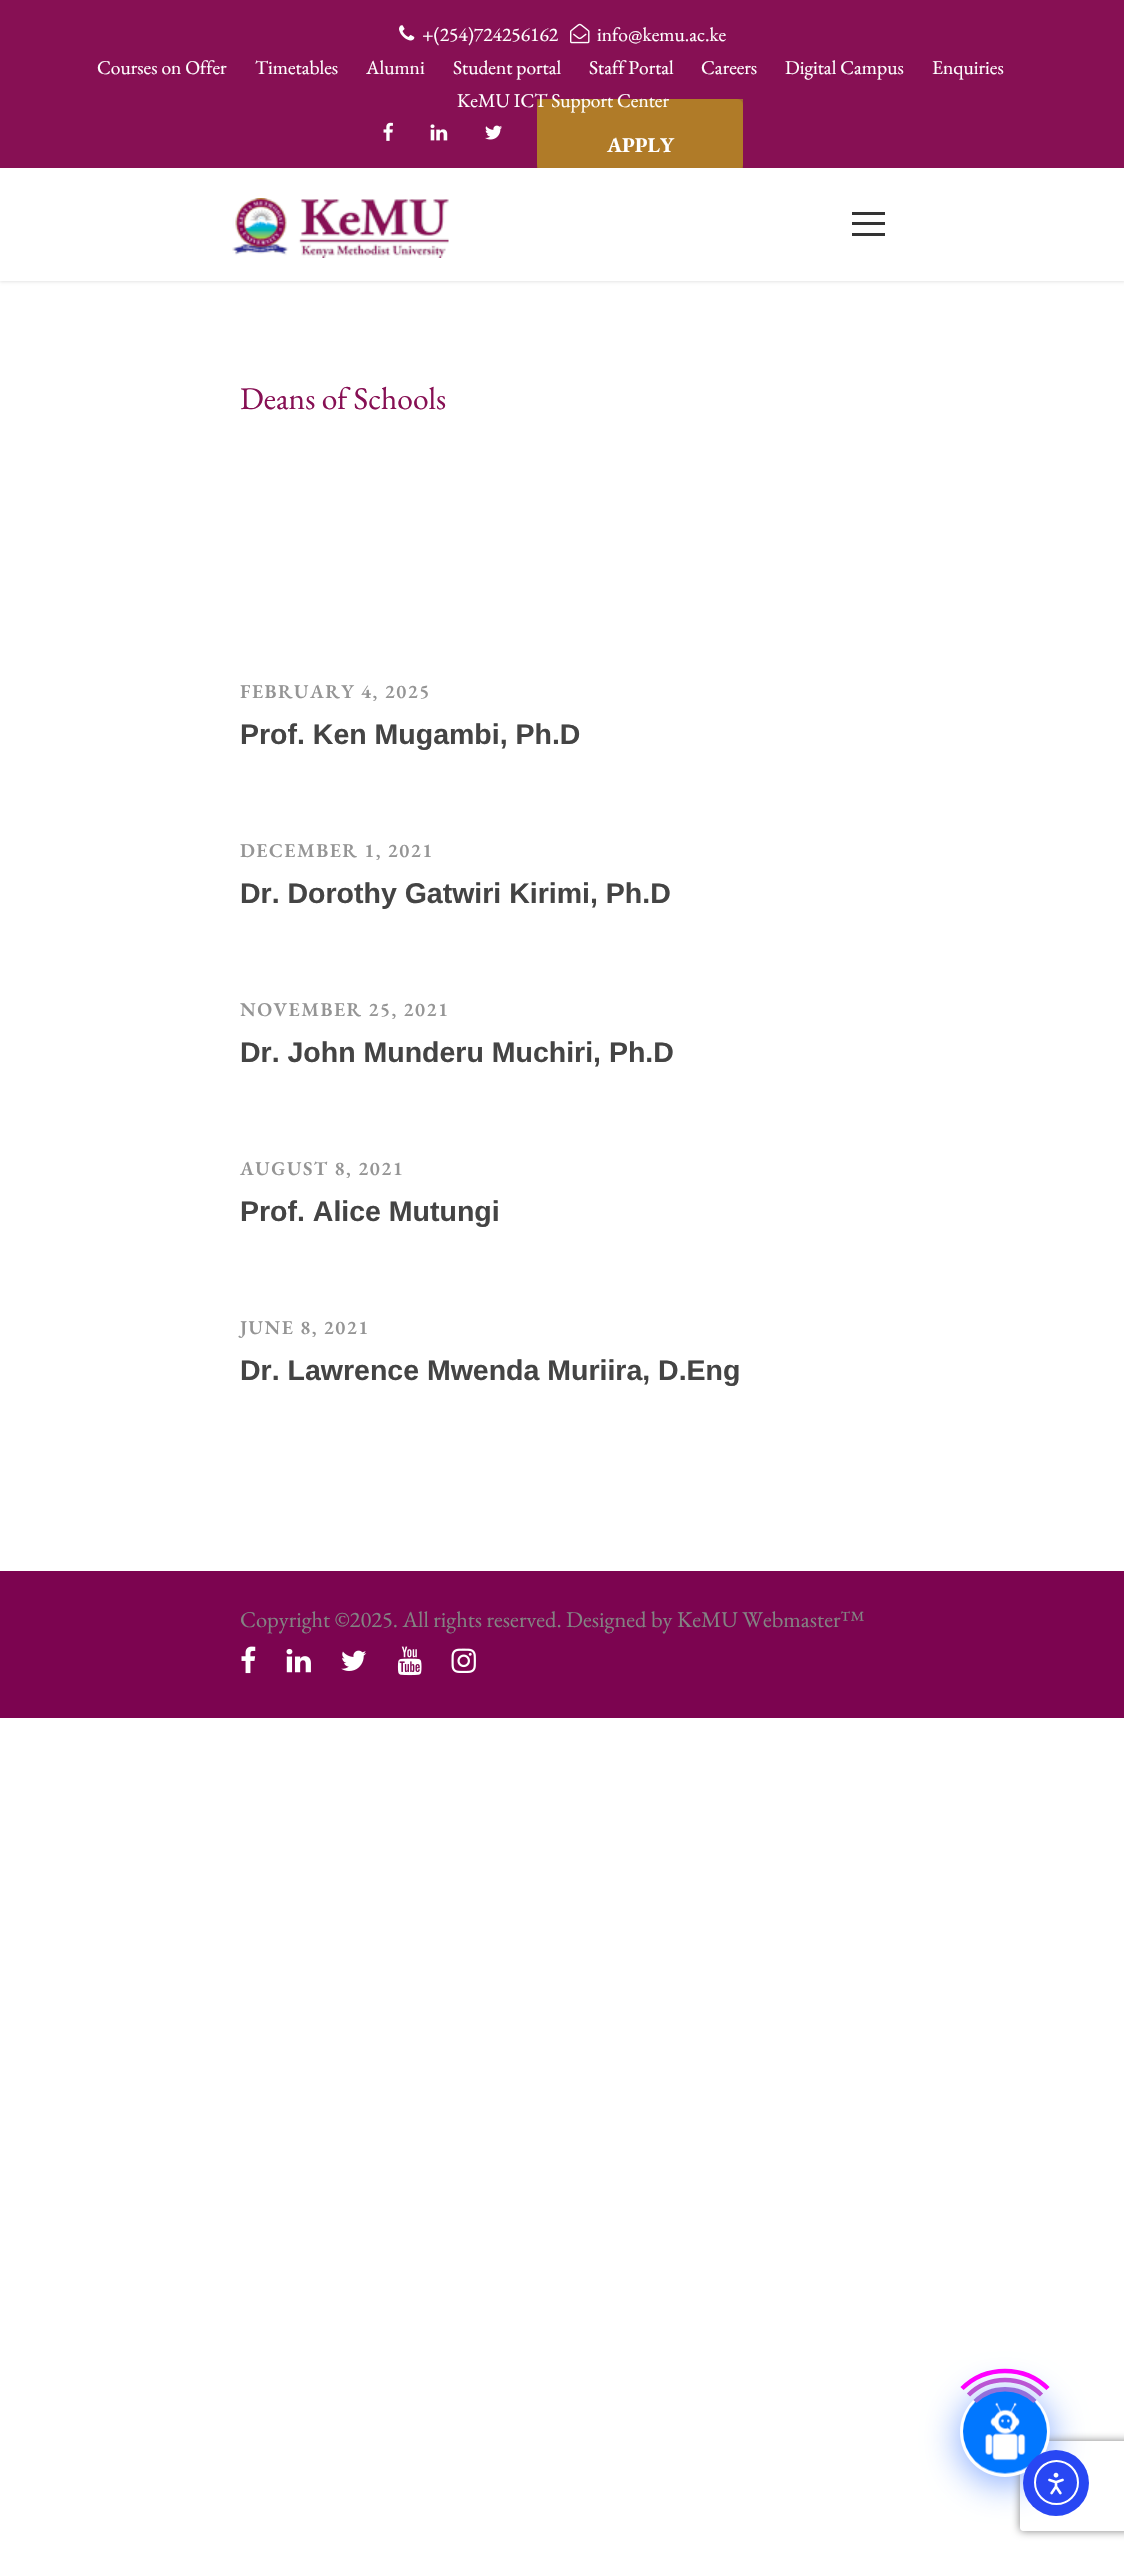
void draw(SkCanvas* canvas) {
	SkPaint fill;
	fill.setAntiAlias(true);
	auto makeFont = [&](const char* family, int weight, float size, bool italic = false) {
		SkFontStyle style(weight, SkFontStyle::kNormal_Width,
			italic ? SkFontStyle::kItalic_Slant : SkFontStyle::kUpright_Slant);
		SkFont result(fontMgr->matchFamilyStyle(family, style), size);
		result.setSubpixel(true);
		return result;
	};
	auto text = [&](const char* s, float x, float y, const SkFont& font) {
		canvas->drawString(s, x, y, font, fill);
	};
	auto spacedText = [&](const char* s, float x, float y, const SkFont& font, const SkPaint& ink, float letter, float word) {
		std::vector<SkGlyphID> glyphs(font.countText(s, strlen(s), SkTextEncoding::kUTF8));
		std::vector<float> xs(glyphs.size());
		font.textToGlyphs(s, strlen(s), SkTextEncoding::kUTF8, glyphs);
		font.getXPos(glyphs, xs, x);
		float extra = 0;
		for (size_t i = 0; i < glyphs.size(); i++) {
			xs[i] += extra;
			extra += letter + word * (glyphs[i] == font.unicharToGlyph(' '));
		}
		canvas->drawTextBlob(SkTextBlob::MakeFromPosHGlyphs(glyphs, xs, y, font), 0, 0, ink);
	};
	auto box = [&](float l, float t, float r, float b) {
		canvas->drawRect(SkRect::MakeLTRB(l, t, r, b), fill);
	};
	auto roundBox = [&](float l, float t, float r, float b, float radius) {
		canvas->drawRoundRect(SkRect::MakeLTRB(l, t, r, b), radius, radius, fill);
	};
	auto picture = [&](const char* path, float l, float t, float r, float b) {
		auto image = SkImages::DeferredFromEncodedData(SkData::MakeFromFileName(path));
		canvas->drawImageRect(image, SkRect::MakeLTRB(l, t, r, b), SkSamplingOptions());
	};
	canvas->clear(0xFFFFFFFF);
	fill.setColor(0xFF871054);
	box(0, 0, 1124, 168);
	picture("image0.png", 399, 25, 415, 41);
	picture("image1.png", 570, 23, 590, 44);
	picture("image2.png", 383, 122, 393, 141);
	picture("image3.png", 430, 124, 448, 141);
	picture("image4.png", 485, 125, 502, 140);
	fill.setColor(0xFFA0672E);
	box(537, 99, 743, 168);
	fill.setColor(0xFFB07B28);
	roundBox(537, 99, 743, 170, 6);
	fill.setColor(0x1A000000);
	fill.setMaskFilter(SkMaskFilter::MakeBlur(kNormal_SkBlurStyle, 1.5f));
	canvas->drawRect(SkRect::MakeLTRB(0, 170, 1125, 282), fill);
	fill.setMaskFilter(nullptr);
	fill.setColor(0xFFFFFFFF);
	box(0, 168, 1124, 281);
	picture("image5.png", 232, 198, 449, 258);
	fill.setColor(0xFF333333);
	box(852, 212, 885, 215);
	box(852, 222, 885, 225);
	box(852, 233, 885, 236);
	fill.setColor(0xFF7C0450);
	box(0, 1571, 1124, 1718);
	picture("image6.png", 241, 1646, 256, 1674);
	picture("image7.png", 286, 1648, 311, 1673);
	picture("image8.png", 341, 1650, 367, 1671);
	picture("image9.png", 397, 1646, 422, 1676);
	picture("image10.png", 451, 1648, 476, 1673);
	fill.setColor(0x80004DFF);
	fill.setMaskFilter(SkMaskFilter::MakeBlur(kNormal_SkBlurStyle, 18));
	canvas->drawRoundRect(SkRect::MakeLTRB(960, 2393, 1050, 2483), 45, 45, fill);
	fill.setMaskFilter(nullptr);
	canvas->save();
	canvas->clipPath(SkPathBuilder(SkPathFillType::kEvenOdd).moveTo(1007, 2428).lineTo(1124, 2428).lineTo(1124, 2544).lineTo(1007, 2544).close().moveTo(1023, 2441).lineTo(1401, 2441).cubicTo(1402.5f, 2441, 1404, 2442.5f, 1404, 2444).lineTo(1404, 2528).cubicTo(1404, 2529.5f, 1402.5f, 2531, 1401, 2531).lineTo(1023, 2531).cubicTo(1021.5f, 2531, 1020, 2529.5f, 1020, 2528).lineTo(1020, 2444).cubicTo(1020, 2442.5f, 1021.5f, 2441, 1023, 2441).close().detach(), true);
	fill.setColor(0xFF808080);
	fill.setMaskFilter(SkMaskFilter::MakeBlur(kNormal_SkBlurStyle, 4));
	canvas->drawRoundRect(SkRect::MakeLTRB(1020, 2441, 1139, 2531), 3, 3, fill);
	fill.setMaskFilter(nullptr);
	canvas->restore();
	fill.setColor(0xFFFFFFFF);
	canvas->drawCircle(1005, 2432, 45, fill);
	picture("image11.png", 963, 2391, 1047, 2474);
	fill.setStyle(SkPaint::kStroke_Style);
	fill.setStrokeWidth(4.5f);
	fill.setColor(0xFF9370DB);
	canvas->drawPath(SkPathBuilder().moveTo(975, 2401.5f).cubicTo(991, 2385, 1019, 2385, 1035, 2401.5f).detach(), fill);
	fill.setColor(0xFFBA55D3);
	canvas->drawPath(SkPathBuilder().moveTo(968.5f, 2395).cubicTo(988.5f, 2375, 1021.5f, 2375, 1041.5f, 2395).detach(), fill);
	fill.setColor(0xFFFF00FF);
	canvas->drawPath(SkPathBuilder().moveTo(962, 2388.5f).cubicTo(985.5f, 2365, 1024.5f, 2365, 1048, 2388.5f).detach(), fill);
	fill.setStyle(SkPaint::kFill_Style);
	fill.setColor(0xFF2847F3);
	canvas->drawCircle(1056, 2483, 33, fill);
	fill.setStyle(SkPaint::kStroke_Style);
	fill.setStrokeWidth(2);
	fill.setColor(0xFFFFFFFF);
	canvas->drawCircle(1056.5f, 2482.5f, 21.5f, fill);
	picture("image12.png", 1048, 2472, 1064, 2495);
	auto font1 = makeFont("EB Garamond", 400, 19.5f);
	fill.setStyle(SkPaint::kFill_Style);
	text("+(254)724256162", 422, 41, font1);
	text("info@kemu.ac.ke", 597, 41, font1);
	text("Courses on Offer", 97, 74, font1);
	text("Timetables", 255, 74, font1);
	text("Alumni", 366, 74, font1);
	text("Student portal", 453, 74, font1);
	text("Staff Portal", 589, 74, font1);
	text("Careers", 701, 74, font1);
	text("Digital Campus", 785, 74, font1);
	text("Enquiries", 932, 74, font1);
	text("KeMU ICT Support Center", 457, 107, font1);
	auto font2 = makeFont("EB Garamond", 700, 21);
	text("APPLY", 607, 152, font2);
	auto font3 = makeFont("EB Garamond", 400, 31.5f);
	fill.setColor(0xFF871054);
	text("Deans of Schools", 240, 409, font3);
	auto font4 = makeFont("EB Garamond", 600, 19.5f);
	fill.setColor(0xFF959595);
	spacedText("FEBRUARY 4, 2025", 240, 698, font4, fill, 1.5f, 0);
	auto font5 = makeFont("Liberation Sans", 700, 28.5f);
	fill.setColor(0xFF444444);
	text("Prof. Ken Mugambi, Ph.D", 240, 744, font5);
	fill.setColor(0xFF959595);
	spacedText("DECEMBER 1, 2021", 240, 857, font4, fill, 1.5f, 0);
	fill.setColor(0xFF444444);
	text("Dr. Dorothy Gatwiri Kirimi, Ph.D", 240, 903, font5);
	fill.setColor(0xFF959595);
	spacedText("NOVEMBER 25, 2021", 240, 1016, font4, fill, 1.5f, 0);
	fill.setColor(0xFF444444);
	text("Dr. John Munderu Muchiri, Ph.D", 240, 1062, font5);
	fill.setColor(0xFF959595);
	spacedText("AUGUST 8, 2021", 240, 1175, font4, fill, 1.5f, 0);
	fill.setColor(0xFF444444);
	text("Prof. Alice Mutungi", 240, 1221, font5);
	fill.setColor(0xFF959595);
	spacedText("JUNE 8, 2021", 240, 1334, font4, fill, 1.5f, 0);
	fill.setColor(0xFF444444);
	text("Dr. Lawrence Mwenda Muriira, D.Eng", 240, 1380, font5);
	auto font6 = makeFont("EB Garamond", 400, 22.5f);
	fill.setColor(0xFF838383);
	text("Copyright ©2025. All rights reserved. Designed by KeMU Webmaster™", 240, 1627, font6);
}
